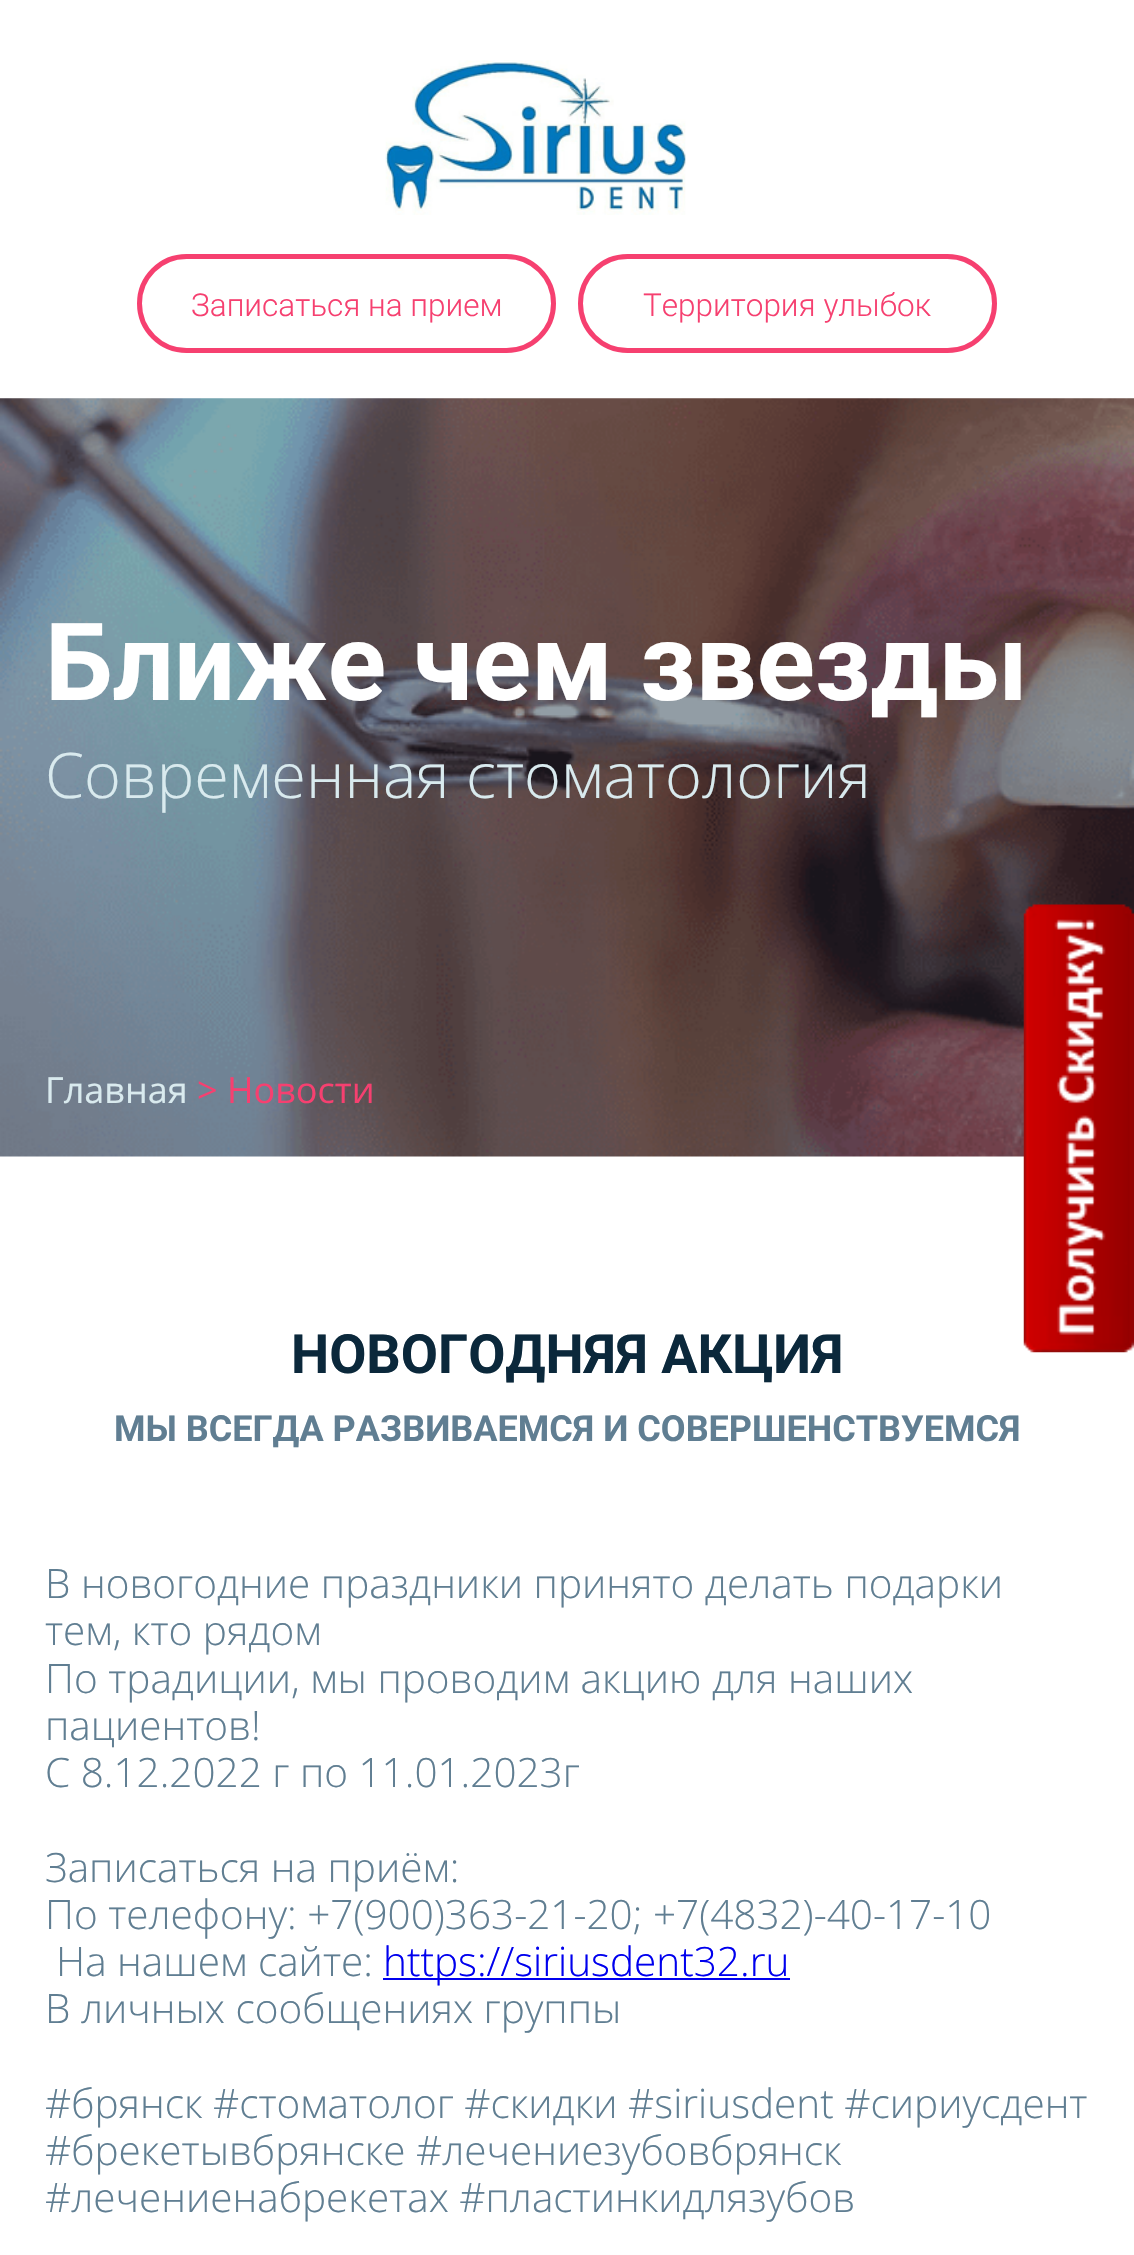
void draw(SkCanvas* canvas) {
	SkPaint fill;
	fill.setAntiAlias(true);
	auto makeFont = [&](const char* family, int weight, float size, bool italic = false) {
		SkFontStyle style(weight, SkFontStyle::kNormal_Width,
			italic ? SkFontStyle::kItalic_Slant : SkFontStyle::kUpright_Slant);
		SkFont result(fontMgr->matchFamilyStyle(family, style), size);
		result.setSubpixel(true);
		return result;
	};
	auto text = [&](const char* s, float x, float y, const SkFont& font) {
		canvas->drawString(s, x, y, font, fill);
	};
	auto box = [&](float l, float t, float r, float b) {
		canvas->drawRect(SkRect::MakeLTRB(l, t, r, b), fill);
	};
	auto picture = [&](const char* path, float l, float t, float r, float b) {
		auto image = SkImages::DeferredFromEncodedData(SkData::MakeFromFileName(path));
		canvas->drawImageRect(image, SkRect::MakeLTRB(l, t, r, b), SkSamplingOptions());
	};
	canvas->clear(0xFFFFFFFF);
	picture("image0.png", 385, 60, 686, 215);
	fill.setStyle(SkPaint::kStroke_Style);
	fill.setStrokeWidth(5);
	fill.setColor(0xFFF64070);
	canvas->drawRoundRect(SkRect::MakeLTRB(139.5f, 256.5f, 553.5f, 350.5f), 47, 47, fill);
	canvas->drawRoundRect(SkRect::MakeLTRB(580.5f, 256.5f, 994.5f, 350.5f), 47, 47, fill);
	picture("image1.png", 0, 398, 1134, 1157);
	fill.setStyle(SkPaint::kFill_Style);
	fill.setColor(0xFF0000EE);
	box(383, 1978, 790, 1980);
	picture("image2.png", 1023, 904, 1134, 1353);
	auto font1 = makeFont("Roboto", 300, 31.5f);
	fill.setColor(0xFFF64070);
	text("Записаться на прием", 191, 316, font1);
	text("Территория улыбок", 643, 316, font1);
	auto font2 = makeFont("Roboto", 700, 108);
	fill.setColor(0xFFFFFFFF);
	text("Ближе чем звезды", 45, 700, font2);
	auto font3 = makeFont("Open Sans", 300, 63);
	fill.setColor(0xFFD9EAEE);
	text("Современная стоматология", 45, 798, font3);
	auto font4 = makeFont("Open Sans", 400, 36);
	text("Главная", 45, 1103, font4);
	fill.setColor(0xFFF64070);
	text("> Новости", 197, 1103, font4);
	auto font5 = makeFont("Roboto", 700, 54);
	fill.setColor(0xFF0B283B);
	text("НОВОГОДНЯЯ АКЦИЯ", 291, 1373, font5);
	auto font6 = makeFont("Roboto", 700, 36);
	fill.setColor(0xFF607E92);
	text("МЫ ВСЕГДА РАЗВИВАЕМСЯ И СОВЕРШЕНСТВУЕМСЯ", 114, 1441, font6);
	auto font7 = makeFont("Open Sans", 300, 40.5f);
	text("В новогодние праздники принято делать подарки", 45, 1598, font7);
	text("тем, кто рядом", 45, 1645, font7);
	text("По традиции, мы проводим акцию для наших", 45, 1693, font7);
	text("пациентов!", 45, 1740, font7);
	text("С 8.12.2022 г по 11.01.2023г", 45, 1787, font7);
	text("Записаться на приём:", 45, 1882, font7);
	text("По телефону: +7(900)363-21-20; +7(4832)-40-17-10", 45, 1929, font7);
	text("На нашем сайте:", 56, 1976, font7);
	fill.setColor(0xFF0000EE);
	text("https://siriusdent32.ru", 383, 1976, font7);
	fill.setColor(0xFF607E92);
	text("В личных сообщениях группы", 45, 2023, font7);
	text("#брянск #стоматолог #скидки #siriusdent #сириусдент", 45, 2118, font7);
	text("#брекетывбрянске #лечениезубовбрянск", 45, 2165, font7);
	text("#лечениенабрекетах #пластинкидлязубов", 45, 2212, font7);
}
